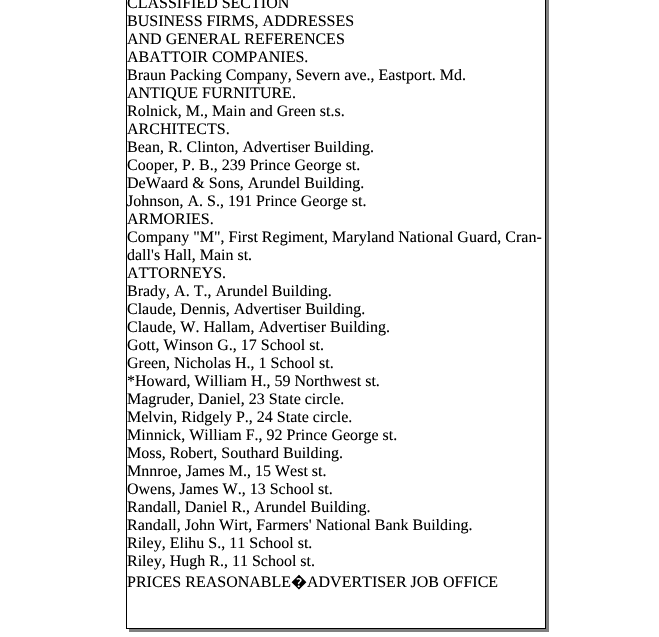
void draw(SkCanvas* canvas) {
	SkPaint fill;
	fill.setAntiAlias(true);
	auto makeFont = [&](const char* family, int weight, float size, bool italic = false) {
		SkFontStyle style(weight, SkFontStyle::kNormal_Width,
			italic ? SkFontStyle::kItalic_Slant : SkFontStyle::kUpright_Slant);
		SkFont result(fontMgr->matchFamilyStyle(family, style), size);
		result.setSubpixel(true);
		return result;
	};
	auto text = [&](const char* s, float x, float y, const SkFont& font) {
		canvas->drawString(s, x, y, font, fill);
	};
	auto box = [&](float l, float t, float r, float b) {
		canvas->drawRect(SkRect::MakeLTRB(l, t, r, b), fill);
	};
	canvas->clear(0xFFFFFFFF);
	fill.setColor(0xFF000000);
	box(126, 0, 127, 629);
	box(545, 0, 546, 629);
	fill.setColor(0xFF808080);
	box(546, 0, 549, 632);
	fill.setColor(0xFF000000);
	box(127, 628, 545, 629);
	fill.setColor(0xFF808080);
	box(126, 629, 546, 632);
	fill.setColor(0xFFFFFFFF);
	box(126, 629, 129, 632);
	auto font1 = makeFont("Liberation Serif", 400, 16);
	fill.setColor(0xFF000000);
	text("CLASSIFIED SECTION", 127, 8, font1);
	text("BUSINESS FIRMS, ADDRESSES", 127, 26, font1);
	text("AND GENERAL REFERENCES", 127, 44, font1);
	text("ABATTOIR COMPANIES.", 127, 62, font1);
	text("Braun Packing Company, Severn ave., Eastport. Md.", 127, 80, font1);
	text("ANTIQUE FURNITURE.", 127, 98, font1);
	text("Rolnick, M., Main and Green st.s.", 127, 116, font1);
	text("ARCHITECTS.", 127, 134, font1);
	text("Bean, R. Clinton, Advertiser Building.", 127, 152, font1);
	text("Cooper, P. B., 239 Prince George st.", 127, 170, font1);
	text("DeWaard & Sons, Arundel Building.", 127, 188, font1);
	text("Johnson, A. S., 191 Prince George st.", 127, 206, font1);
	text("ARMORIES.", 127, 224, font1);
	text("Company \"M\", First Regiment, Maryland National Guard, Cran-", 127, 242, font1);
	text("dall's Hall, Main st.", 127, 260, font1);
	text("ATTORNEYS.", 127, 278, font1);
	text("Brady, A. T., Arundel Building.", 127, 296, font1);
	text("Claude, Dennis, Advertiser Building.", 127, 314, font1);
	text("Claude, W. Hallam, Advertiser Building.", 127, 332, font1);
	text("Gott, Winson G., 17 School st.", 127, 350, font1);
	text("Green, Nicholas H., 1 School st.", 127, 368, font1);
	text("*Howard, William H., 59 Northwest st.", 127, 386, font1);
	text("Magruder, Daniel, 23 State circle.", 127, 404, font1);
	text("Melvin, Ridgely P., 24 State circle.", 127, 422, font1);
	text("Minnick, William F., 92 Prince George st.", 127, 440, font1);
	text("Moss, Robert, Southard Building.", 127, 458, font1);
	text("Mnnroe, James M., 15 West st.", 127, 476, font1);
	text("Owens, James W., 13 School st.", 127, 494, font1);
	text("Randall, Daniel R., Arundel Building.", 127, 512, font1);
	text("Randall, John Wirt, Farmers' National Bank Building.", 127, 530, font1);
	text("Riley, Elihu S., 11 School st.", 127, 548, font1);
	text("Riley, Hugh R., 11 School st.", 127, 566, font1);
	text("PRICES REASONABLE", 127, 587, font1);
	auto font2 = makeFont("Noto Sans", 400, 16);
	text("�", 291, 587, font2);
	text("ADVERTISER JOB OFFICE", 307, 587, font1);
}
